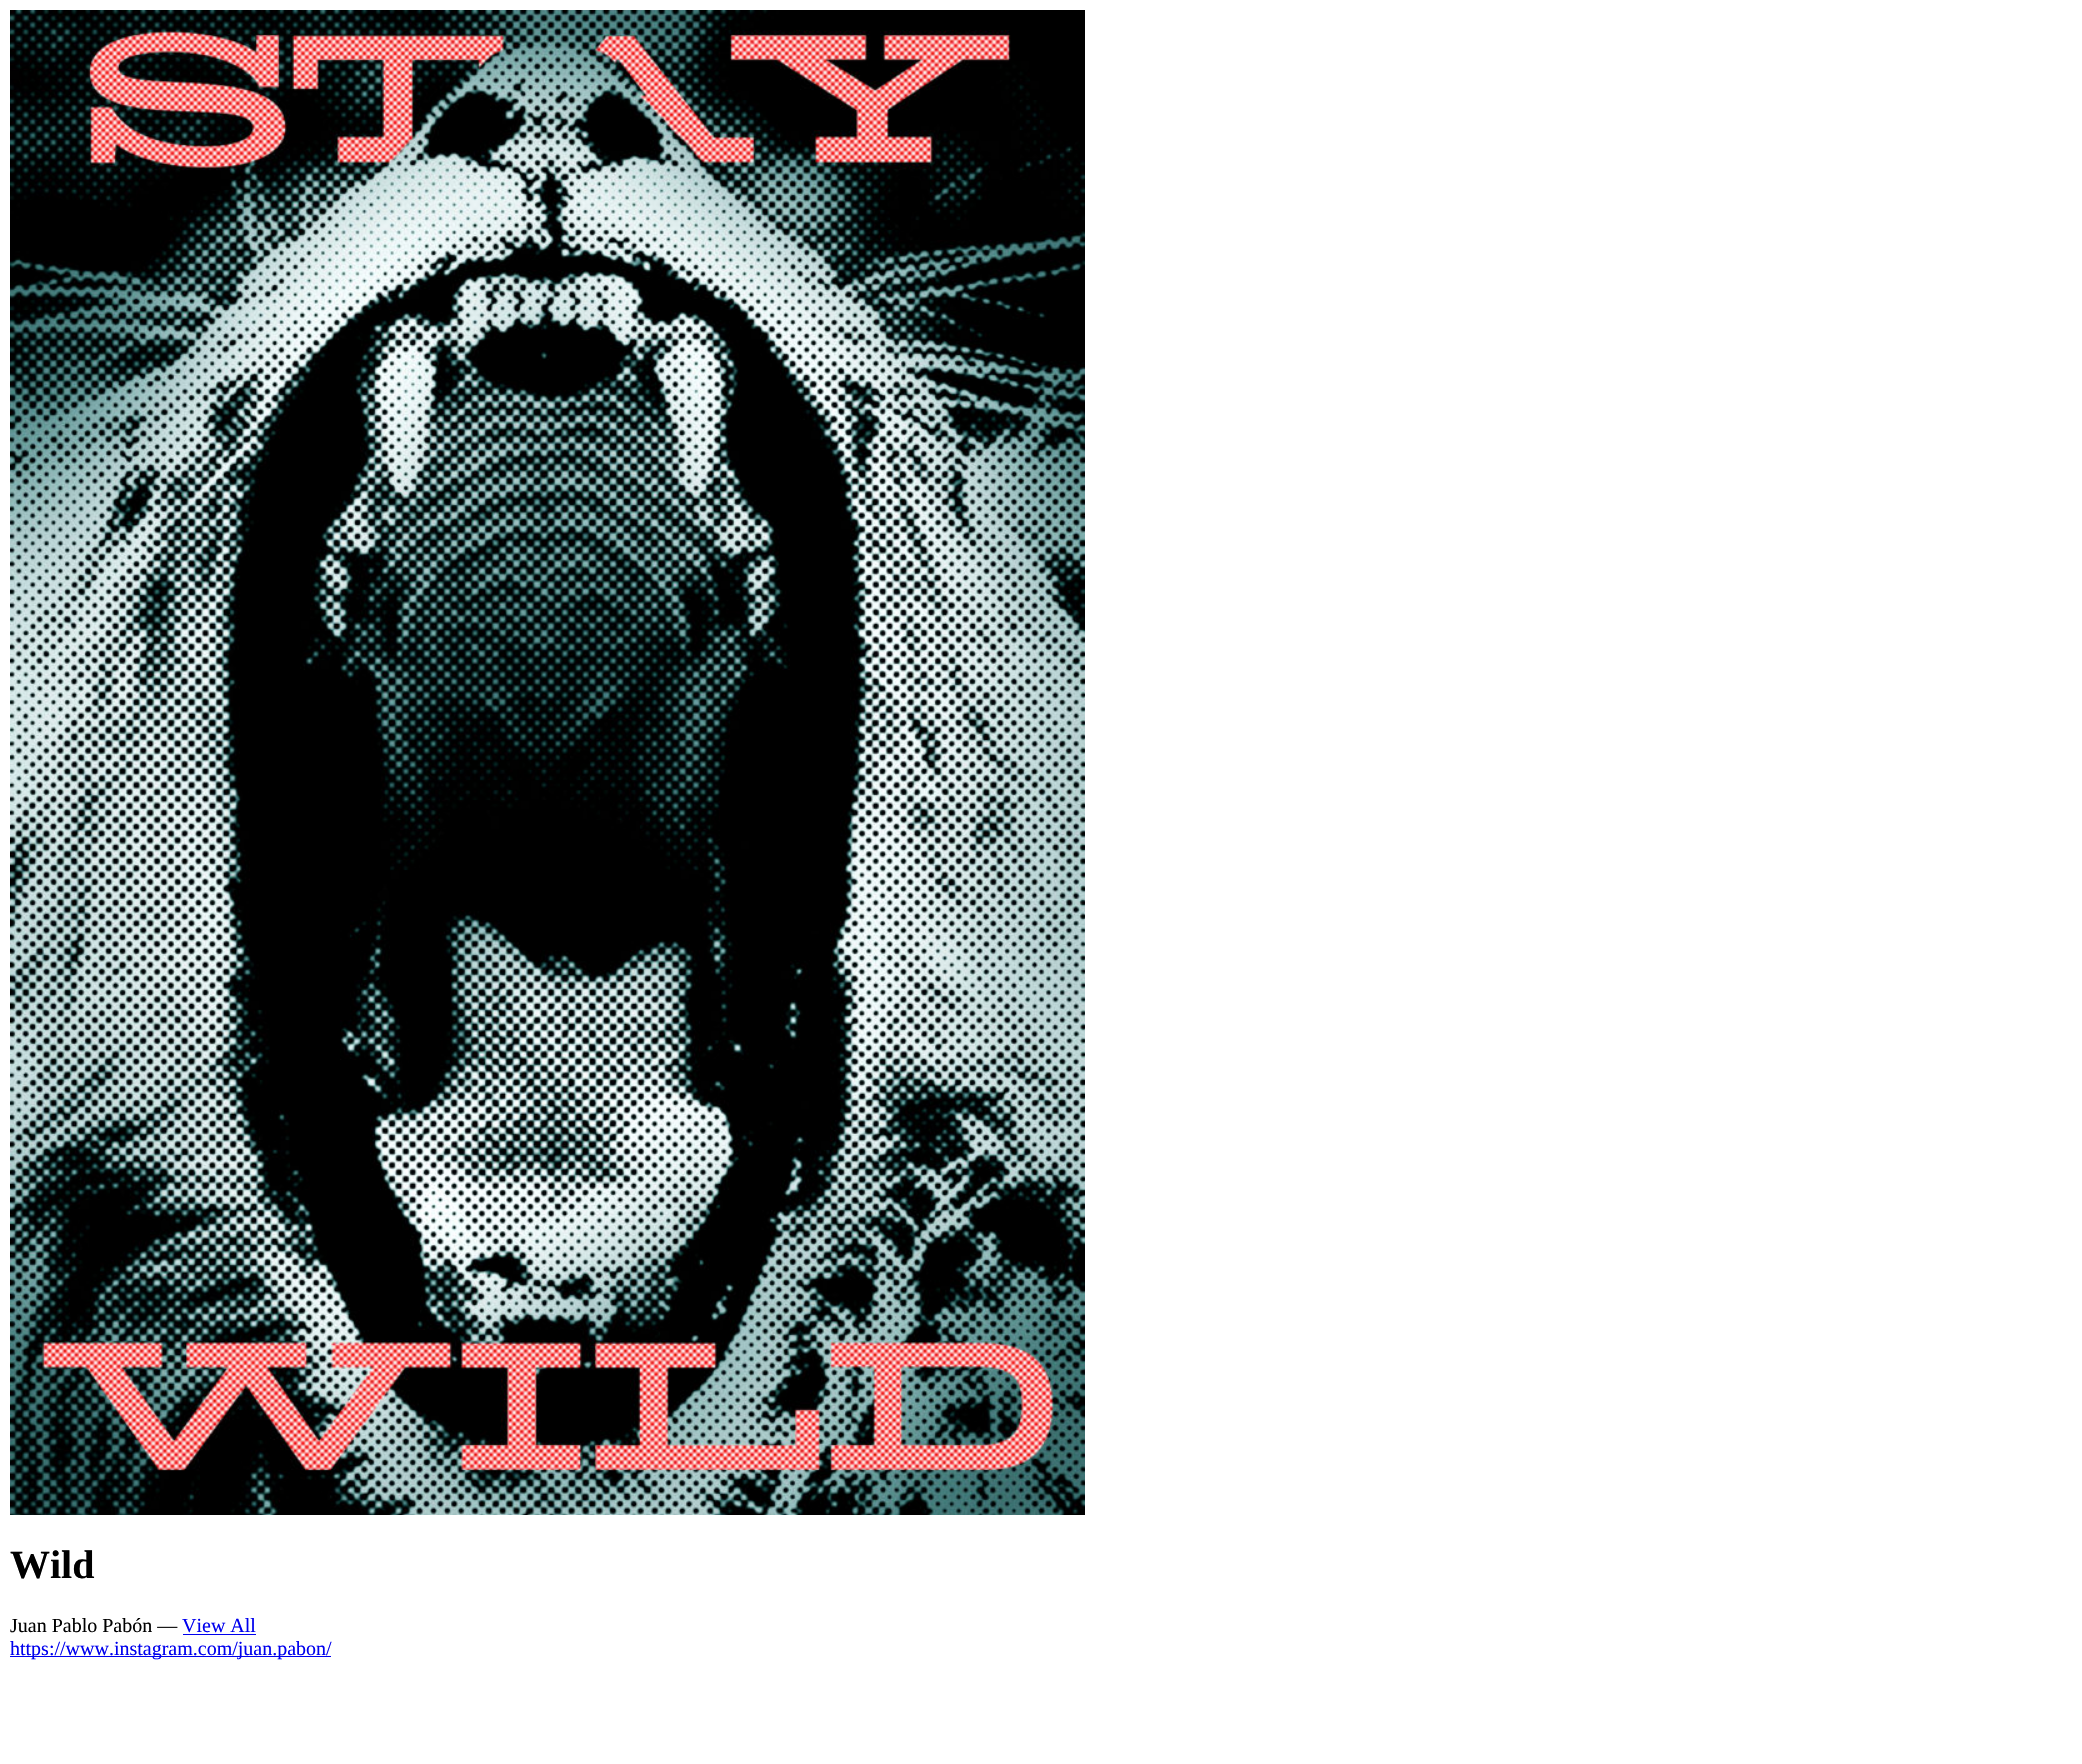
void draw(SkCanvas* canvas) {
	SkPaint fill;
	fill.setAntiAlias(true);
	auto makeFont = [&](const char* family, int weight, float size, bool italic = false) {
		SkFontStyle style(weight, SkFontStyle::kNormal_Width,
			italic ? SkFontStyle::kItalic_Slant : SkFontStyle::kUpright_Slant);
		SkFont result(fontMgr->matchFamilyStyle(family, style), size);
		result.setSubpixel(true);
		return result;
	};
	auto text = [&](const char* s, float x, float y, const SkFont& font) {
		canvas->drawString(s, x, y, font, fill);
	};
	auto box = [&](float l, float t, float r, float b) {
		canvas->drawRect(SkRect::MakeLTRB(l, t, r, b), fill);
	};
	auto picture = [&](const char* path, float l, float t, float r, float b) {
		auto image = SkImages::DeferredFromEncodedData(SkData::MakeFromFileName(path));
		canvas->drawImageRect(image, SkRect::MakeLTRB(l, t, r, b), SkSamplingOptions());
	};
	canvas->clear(0xFFFFFFFF);
	picture("image0.png", 10, 10, 1085, 1515);
	fill.setColor(0xFF0000EE);
	box(183, 1634, 256, 1635);
	box(10, 1656, 331, 1657);
	auto font1 = makeFont("Liberation Serif", 700, 40);
	fill.setColor(0xFF000000);
	text("Wild", 10, 1578, font1);
	auto font2 = makeFont("Liberation Serif", 400, 20);
	text("Juan Pablo Pabón —", 10, 1632, font2);
	fill.setColor(0xFF0000EE);
	text("View All", 182, 1632, font2);
	text("https://www.instagram.com/juan.pabon/", 10, 1655, font2);
}
